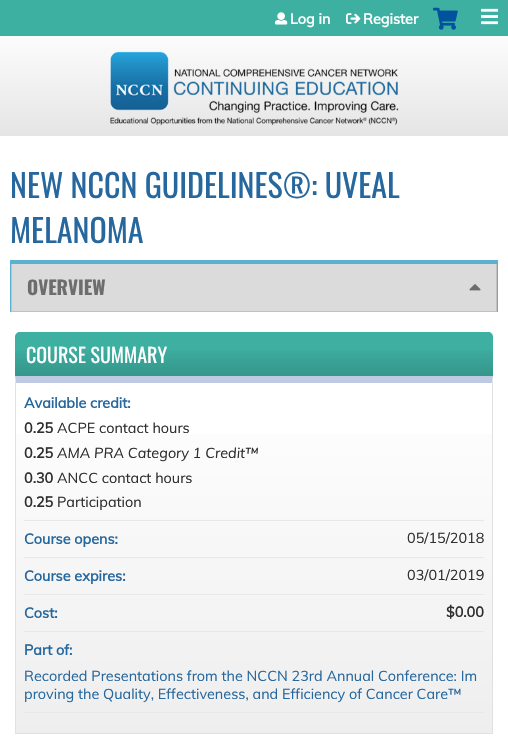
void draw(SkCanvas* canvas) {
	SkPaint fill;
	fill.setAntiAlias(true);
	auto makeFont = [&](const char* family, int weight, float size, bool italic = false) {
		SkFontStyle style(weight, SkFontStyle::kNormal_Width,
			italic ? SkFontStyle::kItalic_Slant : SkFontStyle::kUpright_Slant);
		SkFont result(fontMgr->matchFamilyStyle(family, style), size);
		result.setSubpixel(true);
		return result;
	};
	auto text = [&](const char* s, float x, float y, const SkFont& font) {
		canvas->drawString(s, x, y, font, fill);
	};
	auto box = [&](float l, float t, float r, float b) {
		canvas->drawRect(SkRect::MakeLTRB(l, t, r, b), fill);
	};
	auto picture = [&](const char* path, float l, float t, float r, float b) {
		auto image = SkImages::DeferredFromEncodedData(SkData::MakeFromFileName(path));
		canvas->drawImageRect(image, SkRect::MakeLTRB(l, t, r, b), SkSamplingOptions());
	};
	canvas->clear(0xFFFFFFFF);
	{
		const SkColor colors[] = {0xFFE5E5E5, 0xFFFCFCFC};
		const float stops[] = {0, 1};
		const SkPoint ends[] = {{254, 136}, {254, 36}};
		fill.setShader(SkGradientShader::MakeLinear(ends, colors, stops, 2, SkTileMode::kClamp));
		fill.setAlpha(255);
	}
	box(0, 36, 508, 136);
	fill.setShader(nullptr);
	fill.setColor(0xFF3EB0A2);
	box(0, 0, 508, 36);
	picture("image0.png", 275, 12, 288, 25);
	picture("image1.png", 346, 13, 361, 24);
	picture("image2.png", 433, 7, 458, 30);
	picture("image3.png", 481, 8, 498, 25);
	picture("image4.png", 110, 51, 399, 126);
	fill.setColor(0xFF5AB1D0);
	box(10, 260, 498, 264);
	box(497, 260, 498, 312);
	box(10, 260, 11, 312);
	fill.setColor(0xFFDBDBDB);
	box(12, 264, 496, 311);
	fill.setColor(0xFFC1C1C1);
	box(496, 264, 497, 312);
	box(11, 311, 497, 312);
	box(11, 264, 12, 312);
	picture("image5.png", 469, 284, 481, 291);
	fill.setColor(0xFF3EB0A2);
	canvas->drawPath(SkPathBuilder().moveTo(20, 332).lineTo(488, 332).cubicTo(491, 332, 493, 334, 493, 337).lineTo(493, 376).lineTo(15, 376).lineTo(15, 337).cubicTo(15, 334, 17, 332, 20, 332).close().detach(), fill);
	{
		const SkColor colors[] = {0x26000000, 0x00000000};
		const float stops[] = {0, 0.7f};
		const SkPoint ends[] = {{254, 376}, {254, 332}};
		fill.setShader(SkGradientShader::MakeLinear(ends, colors, stops, 2, SkTileMode::kClamp));
		fill.setAlpha(255);
	}
	box(15, 350, 493, 376);
	{
		const SkColor colors[] = {0xFFEEEEEE, 0xFFFFFFFF};
		const float stops[] = {0, 1};
		const SkPoint ends[] = {{254, 733}, {254, 383}};
		fill.setShader(SkGradientShader::MakeLinear(ends, colors, stops, 2, SkTileMode::kClamp));
		fill.setAlpha(255);
	}
	box(16, 434, 492, 733);
	fill.setShader(nullptr);
	fill.setColor(0xFFBECAE2);
	canvas->drawPath(SkPathBuilder().moveTo(15, 376).lineTo(493, 376).lineTo(492, 383).lineTo(16, 383).close().detach(), fill);
	fill.setColor(0xFFE1E1E1);
	canvas->drawPath(SkPathBuilder().moveTo(493, 376).lineTo(493, 734).lineTo(492, 733).lineTo(492, 383).close().detach(), fill);
	box(15, 733, 493, 734);
	canvas->drawPath(SkPathBuilder().moveTo(15, 734).lineTo(15, 376).lineTo(16, 383).lineTo(16, 733).close().detach(), fill);
	fill.setColor(0xFFE8E8E8);
	box(24, 520, 484, 521);
	box(24, 557, 484, 558);
	box(24, 594, 484, 595);
	box(24, 631, 484, 632);
	box(24, 712, 484, 713);
	auto font1 = makeFont("Muli", 700, 14.4f);
	fill.setColor(0xFFFFFFFF);
	text("Log in", 290, 24, font1);
	text("Register", 363, 24, font1);
	auto font2 = makeFont("Oswald", 400, 32);
	fill.setColor(0xFF26679E);
	text("NEW NCCN GUIDELINES®: UVEAL", 10, 198, font2);
	text("MELANOMA", 10, 243, font2);
	auto font3 = makeFont("Oswald", 700, 19);
	fill.setColor(0xFF6D6D6D);
	text("OVERVIEW", 27, 295, font3);
	auto font4 = makeFont("Oswald", 400, 20);
	fill.setColor(0xFFFFFFFF);
	text("COURSE SUMMARY", 26, 363, font4);
	fill.setColor(0xFF26679E);
	text("Available credit:", 24, 408, font1);
	fill.setColor(0xFF2F2F2F);
	text("0.25", 24, 433, font1);
	auto font5 = makeFont("Muli", 400, 14.4f);
	text("ACPE contact hours", 57, 433, font5);
	text("0.25", 24, 458, font1);
	auto font6 = makeFont("Muli", 400, 14.4f, true);
	text("AMA PRA Category 1 Credit™", 57, 458, font6);
	text("0.30", 24, 483, font1);
	text("ANCC contact hours", 57, 483, font5);
	text("0.25", 24, 507, font1);
	text("Participation", 57, 507, font5);
	fill.setColor(0xFF26679E);
	text("Course opens:", 24, 544, font1);
	fill.setColor(0xFF2F2F2F);
	text("05/15/2018", 407, 543, font5);
	fill.setColor(0xFF26679E);
	text("Course expires:", 24, 581, font1);
	fill.setColor(0xFF2F2F2F);
	text("03/01/2019", 407, 580, font5);
	fill.setColor(0xFF26679E);
	text("Cost:", 24, 618, font1);
	fill.setColor(0xFF2F2F2F);
	text("$0.00", 446, 617, font1);
	fill.setColor(0xFF26679E);
	text("Part of:", 24, 655, font1);
	text("Recorded Presentations from the NCCN 23rd Annual Conference: Im", 24, 681, font5);
	text("proving the Quality, Effectiveness, and Efficiency of Cancer Care™", 24, 699, font5);
}
